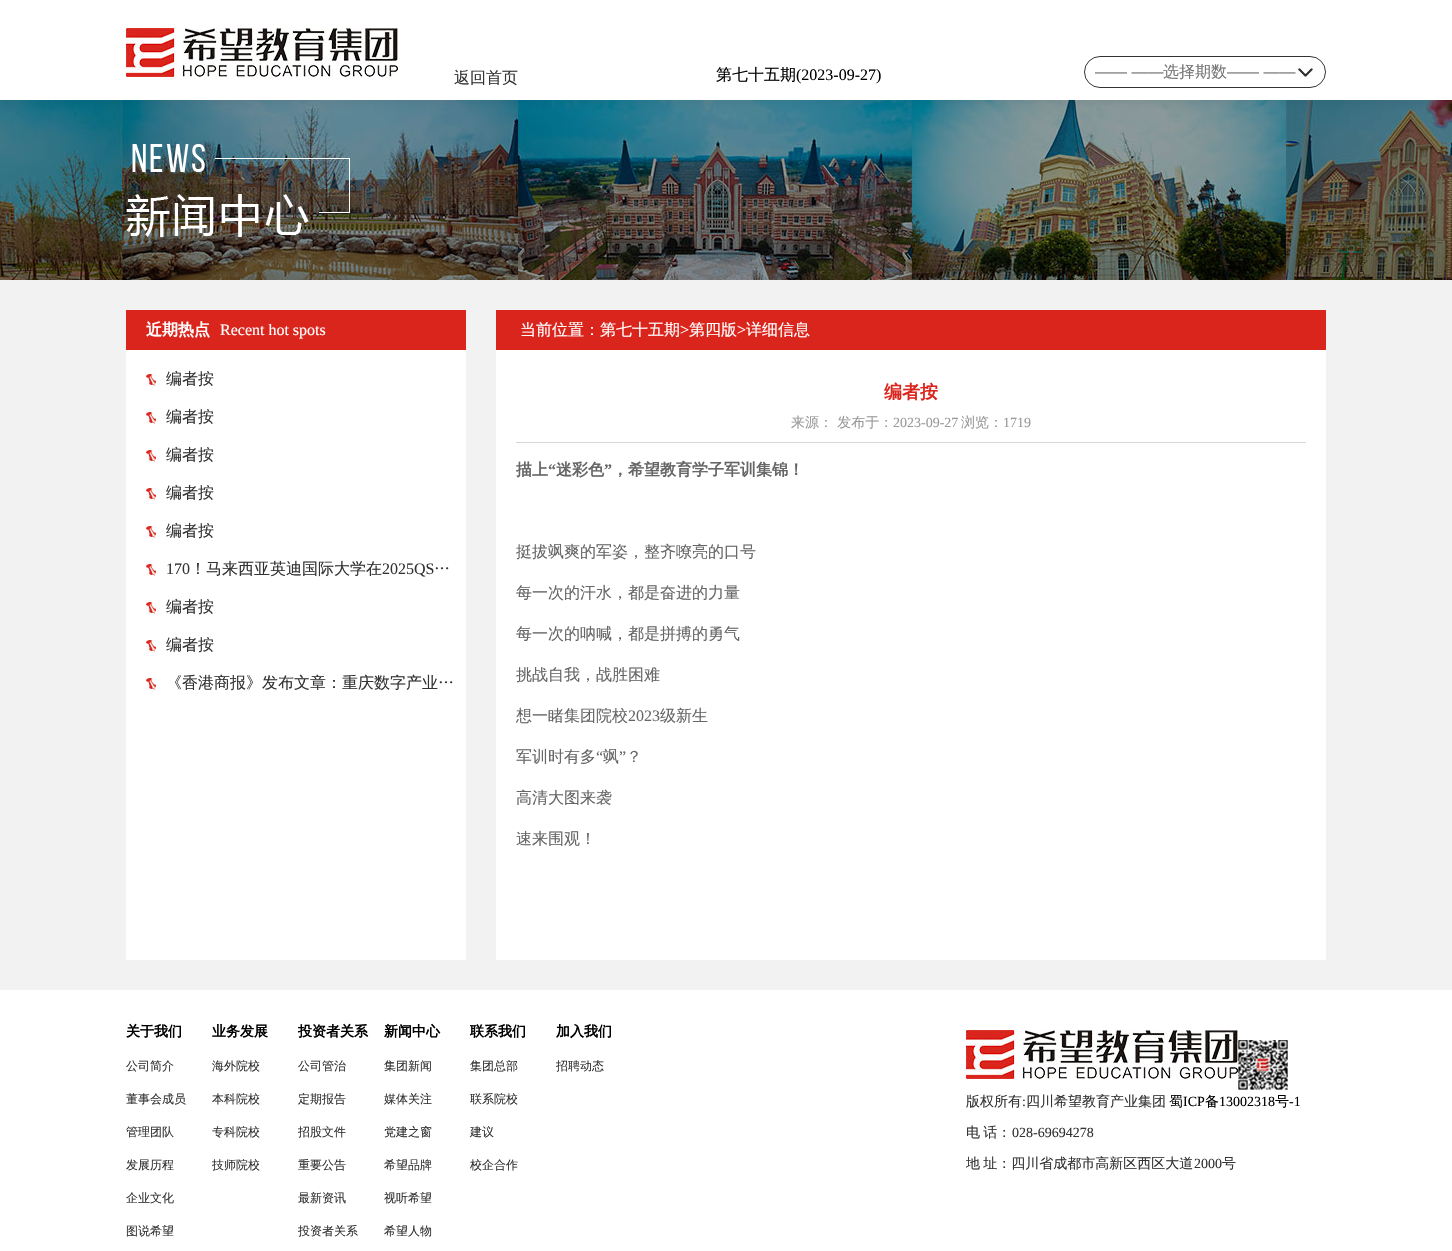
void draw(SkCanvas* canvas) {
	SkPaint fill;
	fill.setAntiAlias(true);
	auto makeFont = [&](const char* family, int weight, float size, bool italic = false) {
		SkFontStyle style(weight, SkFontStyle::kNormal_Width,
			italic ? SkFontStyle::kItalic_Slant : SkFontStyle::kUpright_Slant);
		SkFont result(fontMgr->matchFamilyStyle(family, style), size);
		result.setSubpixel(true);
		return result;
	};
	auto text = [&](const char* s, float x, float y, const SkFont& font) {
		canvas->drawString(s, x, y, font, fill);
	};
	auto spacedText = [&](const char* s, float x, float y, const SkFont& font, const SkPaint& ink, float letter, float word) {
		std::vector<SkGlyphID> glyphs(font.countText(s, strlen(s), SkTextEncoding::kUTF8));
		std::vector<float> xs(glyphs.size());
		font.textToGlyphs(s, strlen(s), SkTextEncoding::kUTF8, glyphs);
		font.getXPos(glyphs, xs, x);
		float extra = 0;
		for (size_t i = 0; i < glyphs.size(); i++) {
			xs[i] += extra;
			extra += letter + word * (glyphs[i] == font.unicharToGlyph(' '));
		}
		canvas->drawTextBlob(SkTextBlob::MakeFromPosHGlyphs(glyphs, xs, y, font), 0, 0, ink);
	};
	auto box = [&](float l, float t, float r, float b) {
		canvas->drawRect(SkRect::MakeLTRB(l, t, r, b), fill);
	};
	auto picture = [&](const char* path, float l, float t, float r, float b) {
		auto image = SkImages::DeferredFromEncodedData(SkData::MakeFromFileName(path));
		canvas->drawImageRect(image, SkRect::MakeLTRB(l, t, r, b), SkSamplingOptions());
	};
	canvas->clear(0xFFFFFFFF);
	fill.setColor(0xFFF2F2F2);
	box(0, 280, 1452, 990);
	picture("image0.png", 126, 28, 398, 77);
	fill.setStyle(SkPaint::kStroke_Style);
	fill.setStrokeWidth(1);
	fill.setColor(0xFF333333);
	canvas->drawRoundRect(SkRect::MakeLTRB(1084.5f, 56.5f, 1325.5f, 87.5f), 15.5f, 15.5f, fill);
	picture("image1.png", 1298, 68, 1313, 77);
	picture("image2.png", 0, 100, 1452, 280);
	picture("image3.png", 126, 144, 350, 237);
	fill.setStyle(SkPaint::kFill_Style);
	fill.setColor(0xFFFFFFFF);
	box(126, 350, 466, 960);
	fill.setColor(0xFFDA251D);
	box(126, 310, 466, 350);
	picture("image4.png", 146, 374, 156, 386);
	picture("image4.png", 146, 412, 156, 424);
	picture("image4.png", 146, 450, 156, 462);
	picture("image4.png", 146, 488, 156, 500);
	picture("image4.png", 146, 526, 156, 538);
	picture("image4.png", 146, 564, 156, 576);
	picture("image4.png", 146, 602, 156, 614);
	picture("image4.png", 146, 640, 156, 652);
	picture("image4.png", 146, 678, 156, 690);
	fill.setColor(0xFFFFFFFF);
	box(496, 350, 1326, 960);
	fill.setColor(0xFFDA251D);
	box(496, 310, 1326, 350);
	fill.setColor(0xFFD7D7D7);
	box(516, 442, 1306, 443);
	picture("image0.png", 966, 1030, 1238, 1079);
	picture("image5.png", 1238, 1040, 1288, 1090);
	auto font1 = makeFont("WenQuanYi Zen Hei", 500, 16);
	fill.setColor(0xFF333333);
	text("返回首页", 454, 83, font1);
	fill.setColor(0xFF000000);
	text("第七十五期", 716, 80, font1);
	auto font2 = makeFont("Liberation Serif", 400, 16);
	text("(2023-09-27)", 796, 80, font2);
	auto font3 = makeFont("Liberation Sans", 400, 16);
	fill.setColor(0xFF757575);
	text("—— ——", 1095, 77, font3);
	text("选择期数", 1163, 77, font1);
	text("—— ——", 1227, 77, font3);
	auto font4 = makeFont("WenQuanYi Zen Hei", 700, 16);
	fill.setColor(0xFFFFFFFF);
	text("近期热点", 146, 335, font4);
	text("Recent hot spots", 220, 335, font2);
	fill.setColor(0xFF333333);
	text("编者按", 166, 384, font1);
	text("编者按", 166, 422, font1);
	text("编者按", 166, 460, font1);
	text("编者按", 166, 498, font1);
	text("编者按", 166, 536, font1);
	text("170", 166, 574, font2);
	text("！马来西亚英迪国际大学在", 190, 574, font1);
	text("2025QS", 382, 574, font2);
	text("…", 434, 574, font1);
	text("编者按", 166, 612, font1);
	text("编者按", 166, 650, font1);
	spacedText("《香港商报》发布文章：重庆数字产业…", 166, 688, font1, fill, 0, -1);
	fill.setColor(0xFFFFFFFF);
	text("当前位置：第七十五期", 520, 335, font1);
	text(">", 680, 335, font2);
	text("第四版", 689, 335, font1);
	text(">", 737, 335, font2);
	text("详细信息", 746, 335, font1);
	auto font5 = makeFont("WenQuanYi Zen Hei", 700, 18);
	fill.setColor(0xFFDA251D);
	text("编者按", 884, 398, font5);
	auto font6 = makeFont("WenQuanYi Zen Hei", 500, 14);
	fill.setColor(0xFF999999);
	text("来源： 发布于：", 791, 427, font6);
	auto font7 = makeFont("Liberation Serif", 400, 14);
	text("2023-09-27", 893, 427, font7);
	text("浏览：", 961, 427, font6);
	text("1719", 1003, 427, font7);
	fill.setColor(0xFF666666);
	text("描上", 516, 475, font4);
	auto font8 = makeFont("Liberation Serif", 700, 16);
	text("“", 548, 475, font8);
	text("迷彩色", 556, 475, font4);
	text("”", 604, 475, font8);
	text("，希望教育学子军训集锦！", 612, 475, font4);
	text("挺拔飒爽的军姿，整齐嘹亮的口号", 516, 557, font1);
	text("每一次的汗水，都是奋进的力量", 516, 598, font1);
	text("每一次的呐喊，都是拼搏的勇气", 516, 639, font1);
	text("挑战自我，战胜困难", 516, 680, font1);
	text("想一睹集团院校", 516, 721, font1);
	text("2023", 628, 721, font2);
	text("级新生", 660, 721, font1);
	text("军训时有多", 516, 762, font1);
	text("“", 596, 762, font2);
	text("飒", 603, 762, font1);
	text("”", 619, 762, font2);
	text("？", 626, 762, font1);
	text("高清大图来袭", 516, 803, font1);
	text("速来围观！", 516, 844, font1);
	auto font9 = makeFont("WenQuanYi Zen Hei", 700, 14);
	fill.setColor(0xFF000000);
	text("关于我们", 126, 1036, font9);
	auto font10 = makeFont("WenQuanYi Zen Hei", 500, 12);
	fill.setColor(0xFF333333);
	text("公司简介", 126, 1070, font10);
	text("董事会成员", 126, 1103, font10);
	text("管理团队", 126, 1136, font10);
	text("发展历程", 126, 1169, font10);
	text("企业文化", 126, 1202, font10);
	text("图说希望", 126, 1235, font10);
	fill.setColor(0xFF000000);
	text("业务发展", 212, 1036, font9);
	fill.setColor(0xFF333333);
	text("海外院校", 212, 1070, font10);
	text("本科院校", 212, 1103, font10);
	text("专科院校", 212, 1136, font10);
	text("技师院校", 212, 1169, font10);
	fill.setColor(0xFF000000);
	text("投资者关系", 298, 1036, font9);
	fill.setColor(0xFF333333);
	text("公司管治", 298, 1070, font10);
	text("定期报告", 298, 1103, font10);
	text("招股文件", 298, 1136, font10);
	text("重要公告", 298, 1169, font10);
	text("最新资讯", 298, 1202, font10);
	text("投资者关系", 298, 1235, font10);
	fill.setColor(0xFF000000);
	text("新闻中心", 384, 1036, font9);
	fill.setColor(0xFF333333);
	text("集团新闻", 384, 1070, font10);
	text("媒体关注", 384, 1103, font10);
	text("党建之窗", 384, 1136, font10);
	text("希望品牌", 384, 1169, font10);
	text("视听希望", 384, 1202, font10);
	text("希望人物", 384, 1235, font10);
	fill.setColor(0xFF000000);
	text("联系我们", 470, 1036, font9);
	fill.setColor(0xFF333333);
	text("集团总部", 470, 1070, font10);
	text("联系院校", 470, 1103, font10);
	text("建议", 470, 1136, font10);
	text("校企合作", 470, 1169, font10);
	fill.setColor(0xFF000000);
	text("加入我们", 556, 1036, font9);
	fill.setColor(0xFF333333);
	text("招聘动态", 556, 1070, font10);
	text("版权所有", 966, 1106, font6);
	text(":", 1022, 1106, font7);
	text("四川希望教育产业集团", 1026, 1106, font6);
	fill.setColor(0xFF000000);
	text("蜀", 1169, 1106, font6);
	text("ICP", 1183, 1106, font7);
	text("备", 1205, 1106, font6);
	text("13002318", 1219, 1106, font7);
	text("号", 1275, 1106, font6);
	text("-1", 1289, 1106, font7);
	fill.setColor(0xFF333333);
	spacedText("电 话：", 966, 1137, font6, fill, 0, -1);
	text("028-69694278", 1012, 1137, font7);
	spacedText("地 址：四川省成都市高新区西区大道", 966, 1168, font6, fill, 0, -1);
	text("2000", 1194, 1168, font7);
	text("号", 1222, 1168, font6);
}
